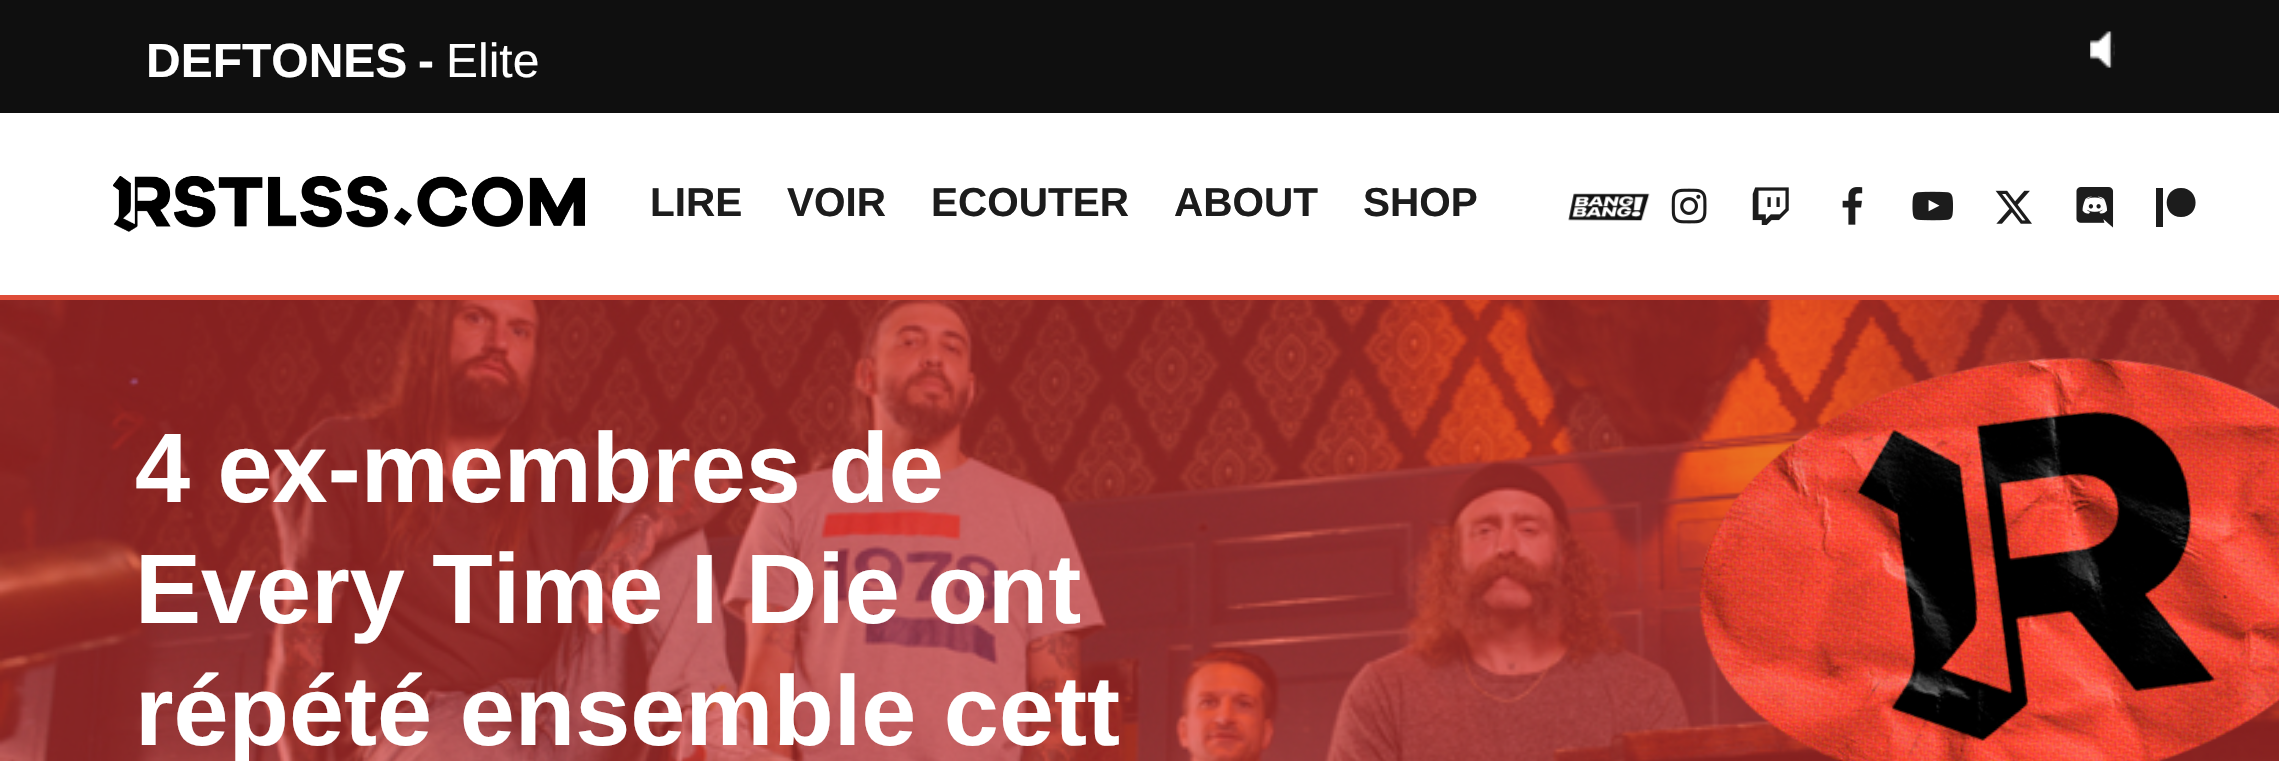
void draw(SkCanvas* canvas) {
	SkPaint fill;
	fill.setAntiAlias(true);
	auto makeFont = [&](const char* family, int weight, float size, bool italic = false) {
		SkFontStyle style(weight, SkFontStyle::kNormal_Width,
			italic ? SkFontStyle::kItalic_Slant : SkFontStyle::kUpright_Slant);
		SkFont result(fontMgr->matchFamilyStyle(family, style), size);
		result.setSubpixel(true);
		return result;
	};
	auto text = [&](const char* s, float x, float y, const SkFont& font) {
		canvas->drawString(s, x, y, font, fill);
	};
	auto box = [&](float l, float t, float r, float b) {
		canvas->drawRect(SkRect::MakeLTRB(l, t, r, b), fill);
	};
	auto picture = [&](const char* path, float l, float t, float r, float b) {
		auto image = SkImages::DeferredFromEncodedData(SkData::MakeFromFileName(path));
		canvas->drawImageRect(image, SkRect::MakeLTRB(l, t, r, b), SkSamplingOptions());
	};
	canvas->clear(0xFFFFFFFF);
	fill.setColor(0xFF0F0F0F);
	box(0, 0, 2279, 113);
	picture("image0.png", 2090, 31, 2115, 68);
	fill.setColor(0xFFDE4C39);
	box(0, 295, 2279, 300);
	picture("image1.png", 113, 176, 585, 232);
	picture("image2.png", 1568, 193, 1650, 221);
	picture("image3.png", 1671, 188, 1707, 224);
	picture("image4.png", 1752, 187, 1789, 225);
	picture("image5.png", 1842, 187, 1863, 225);
	picture("image6.png", 1912, 191, 1953, 221);
	picture("image7.png", 1995, 190, 2032, 224);
	picture("image8.png", 2076, 187, 2114, 228);
	fill.setColor(0xFF1C1C1C);
	canvas->drawPath(SkPathBuilder().moveTo(2181, 188).cubicTo(2162, 188, 2162, 217, 2181, 217).cubicTo(2201, 217, 2200, 188, 2181, 188).close().moveTo(2156, 227).lineTo(2163, 227).lineTo(2163, 188).lineTo(2156, 188).close().detach(), fill);
	picture("image9.png", 0, 300, 2279, 761);
	picture("image10.png", 1699, 357, 2279, 761);
	auto font1 = makeFont("Liberation Sans", 700, 48);
	fill.setColor(0xFFFFFFFF);
	text("DEFTONES", 146, 77, font1);
	text("-", 418, 77, font1);
	auto font2 = makeFont("Liberation Sans", 400, 48);
	text("Elite", 446, 77, font2);
	auto font3 = makeFont("Liberation Sans", 700, 40.5f);
	fill.setColor(0xFF1C1C1C);
	text("LIRE", 650, 216, font3);
	text("VOIR", 787, 216, font3);
	text("ECOUTER", 931, 216, font3);
	text("ABOUT", 1174, 216, font3);
	text("SHOP", 1363, 216, font3);
	auto font4 = makeFont("Liberation Sans", 700, 99);
	fill.setColor(0xFFFFFFFF);
	text("4 ex-membres de", 135, 502, font4);
	text("Every Time I Die ont", 135, 623, font4);
	text("répété ensemble cett", 135, 745, font4);
}
